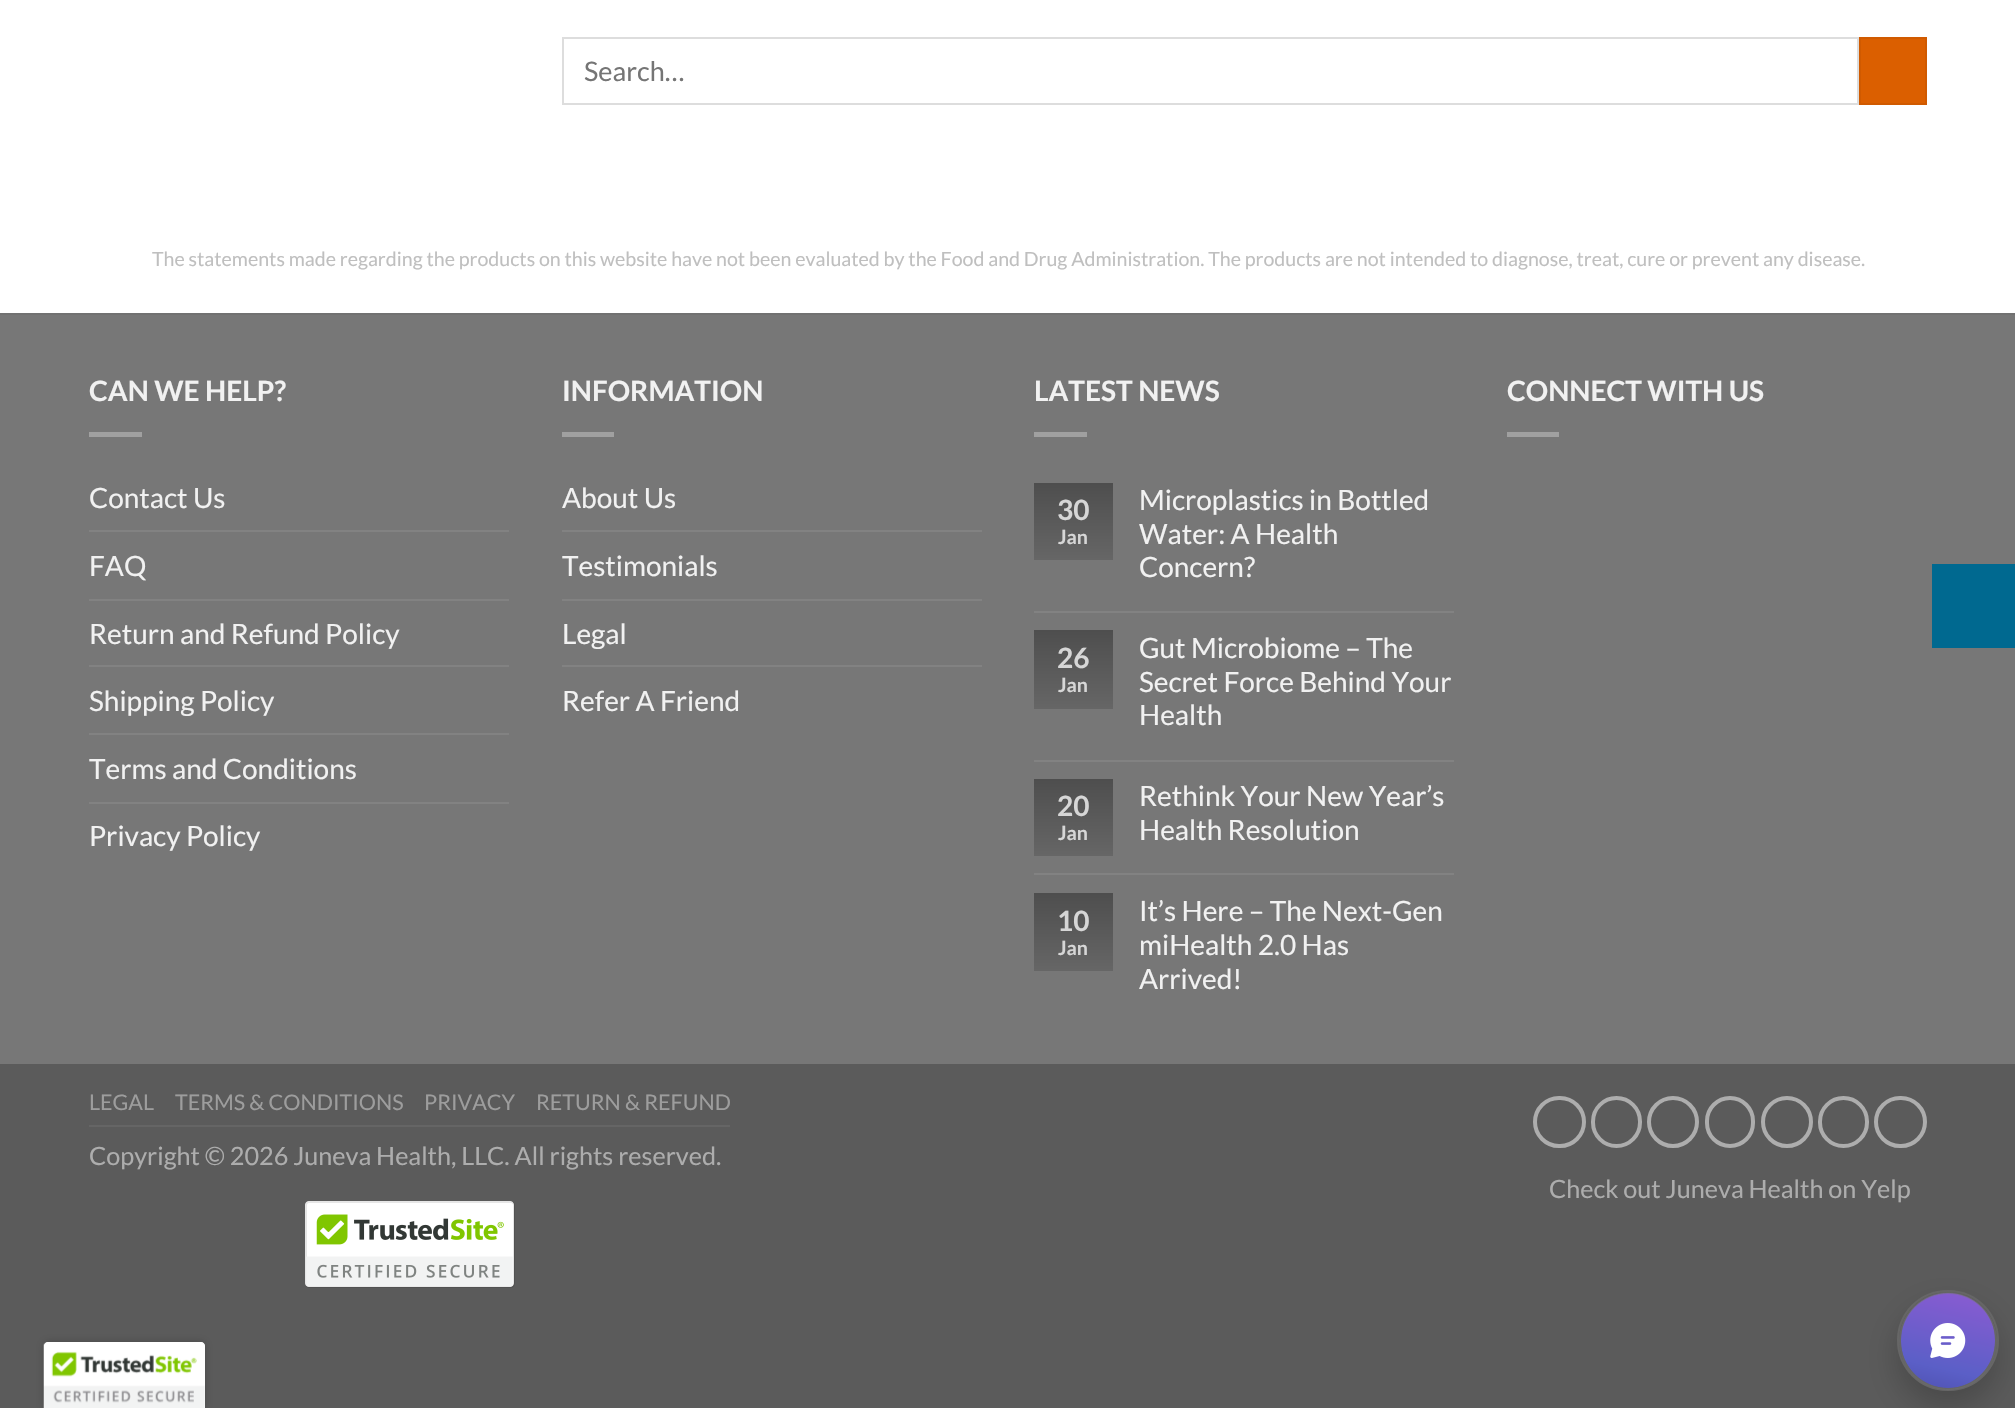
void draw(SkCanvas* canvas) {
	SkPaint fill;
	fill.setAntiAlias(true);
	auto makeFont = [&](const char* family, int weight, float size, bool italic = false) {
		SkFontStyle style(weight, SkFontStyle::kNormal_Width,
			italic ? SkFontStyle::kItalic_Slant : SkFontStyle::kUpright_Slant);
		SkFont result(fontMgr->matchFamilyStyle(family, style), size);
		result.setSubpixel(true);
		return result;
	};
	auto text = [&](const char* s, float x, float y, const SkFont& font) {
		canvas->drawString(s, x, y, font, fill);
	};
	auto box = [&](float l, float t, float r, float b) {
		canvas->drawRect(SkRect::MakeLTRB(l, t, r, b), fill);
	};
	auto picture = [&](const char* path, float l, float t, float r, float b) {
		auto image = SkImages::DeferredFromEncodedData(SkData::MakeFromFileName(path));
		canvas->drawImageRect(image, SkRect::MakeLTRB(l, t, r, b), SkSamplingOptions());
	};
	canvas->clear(0xFFFFFFFF);
	fill.setStyle(SkPaint::kStroke_Style);
	fill.setStrokeWidth(2);
	fill.setColor(0xFFDDDDDD);
	canvas->drawRect(SkRect::MakeLTRB(563, 38, 1858, 104), fill);
	fill.setStyle(SkPaint::kFill_Style);
	fill.setColor(0xFFDB5F00);
	canvas->drawRect(SkRect::MakeLTRB(1860, 38, 1926, 104), fill);
	fill.setStyle(SkPaint::kStroke_Style);
	fill.setColor(0xFFD05A00);
	canvas->drawRect(SkRect::MakeLTRB(1860, 38, 1926, 104), fill);
	fill.setStyle(SkPaint::kFill_Style);
	fill.setColor(0xFF777777);
	box(0, 315, 2015, 1064);
	fill.setColor(0xFF717171);
	box(0, 313, 2015, 315);
	fill.setColor(0xFFA0A0A0);
	box(89, 432, 142, 437);
	fill.setColor(0xFF828282);
	box(89, 530, 509, 532);
	box(89, 599, 509, 601);
	box(89, 665, 509, 667);
	box(89, 733, 509, 735);
	box(89, 802, 509, 804);
	fill.setColor(0xFFA0A0A0);
	box(562, 432, 614, 437);
	fill.setColor(0xFF828282);
	box(562, 530, 982, 532);
	box(562, 599, 982, 601);
	box(562, 665, 982, 667);
	fill.setColor(0xFFA0A0A0);
	box(1034, 432, 1087, 437);
	{
		const SkColor colors[] = {0xFF4E4E4E, 0xFF666666};
		const float stops[] = {0, 1};
		const SkPoint ends[] = {{1074, 483}, {1074, 560}};
		fill.setShader(SkGradientShader::MakeLinear(ends, colors, stops, 2, SkTileMode::kClamp));
		fill.setAlpha(255);
	}
	box(1034, 483, 1113, 560);
	fill.setShader(nullptr);
	fill.setColor(0xFF828282);
	box(1034, 611, 1454, 613);
	{
		const SkColor colors[] = {0xFF4E4E4E, 0xFF666666};
		const float stops[] = {0, 1};
		const SkPoint ends[] = {{1074, 630}, {1074, 709}};
		fill.setShader(SkGradientShader::MakeLinear(ends, colors, stops, 2, SkTileMode::kClamp));
		fill.setAlpha(255);
	}
	box(1034, 630, 1113, 709);
	fill.setShader(nullptr);
	fill.setColor(0xFF828282);
	box(1034, 760, 1454, 762);
	{
		const SkColor colors[] = {0xFF4E4E4E, 0xFF666666};
		const float stops[] = {0, 1};
		const SkPoint ends[] = {{1074, 779}, {1074, 856}};
		fill.setShader(SkGradientShader::MakeLinear(ends, colors, stops, 2, SkTileMode::kClamp));
		fill.setAlpha(255);
	}
	box(1034, 779, 1113, 856);
	fill.setShader(nullptr);
	fill.setColor(0xFF828282);
	box(1034, 873, 1454, 875);
	{
		const SkColor colors[] = {0xFF4E4E4E, 0xFF666666};
		const float stops[] = {0, 1};
		const SkPoint ends[] = {{1074, 893}, {1074, 971}};
		fill.setShader(SkGradientShader::MakeLinear(ends, colors, stops, 2, SkTileMode::kClamp));
		fill.setAlpha(255);
	}
	box(1034, 893, 1113, 971);
	fill.setShader(nullptr);
	fill.setColor(0xFFA0A0A0);
	box(1507, 432, 1559, 437);
	fill.setColor(0xFF5B5B5B);
	box(0, 1064, 2015, 1408);
	fill.setColor(0xFF656565);
	box(89, 1125, 730, 1127);
	picture("image0.png", 305, 1201, 515, 1288);
	fill.setStyle(SkPaint::kStroke_Style);
	fill.setStrokeWidth(4);
	fill.setColor(0xFFADADAD);
	canvas->drawRoundRect(SkRect::MakeLTRB(1535, 1098, 1584, 1146), 24, 24, fill);
	canvas->drawRoundRect(SkRect::MakeLTRB(1593, 1098, 1640, 1146), 23.5f, 23.5f, fill);
	canvas->drawCircle(1673, 1122, 24, fill);
	canvas->drawRoundRect(SkRect::MakeLTRB(1707, 1098, 1753, 1146), 23, 23, fill);
	canvas->drawCircle(1787, 1122, 24, fill);
	canvas->drawRoundRect(SkRect::MakeLTRB(1820, 1098, 1867, 1146), 23.5f, 23.5f, fill);
	canvas->drawRoundRect(SkRect::MakeLTRB(1876, 1098, 1925, 1146), 24, 24, fill);
	fill.setStyle(SkPaint::kFill_Style);
	fill.setColor(0xFF006990);
	box(1932, 564, 2015, 648);
	fill.setColor(0x33000000);
	fill.setMaskFilter(SkMaskFilter::MakeBlur(kNormal_SkBlurStyle, 4.5f));
	canvas->drawRoundRect(SkRect::MakeLTRB(44, 1342, 205, 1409), 4, 4, fill);
	fill.setMaskFilter(nullptr);
	fill.setColor(0xFFFFFFFF);
	canvas->drawPath(SkPathBuilder().moveTo(48, 1342).lineTo(201, 1342).cubicTo(203, 1342, 205, 1344, 205, 1346).lineTo(205, 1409).lineTo(44, 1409).lineTo(44, 1346).cubicTo(44, 1344, 46, 1342, 48, 1342).close().detach(), fill);
	picture("image1.png", 43, 1342, 205, 1408);
	canvas->save();
	canvas->clipPath(SkPathBuilder(SkPathFillType::kEvenOdd).moveTo(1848, 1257).lineTo(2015, 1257).lineTo(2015, 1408).lineTo(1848, 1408).close().moveTo(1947.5f, 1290).lineTo(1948.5f, 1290).cubicTo(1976.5f, 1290, 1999, 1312.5f, 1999, 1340.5f).cubicTo(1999, 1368.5f, 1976.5f, 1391, 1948.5f, 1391).lineTo(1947.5f, 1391).cubicTo(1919.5f, 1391, 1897, 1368.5f, 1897, 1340.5f).cubicTo(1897, 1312.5f, 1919.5f, 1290, 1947.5f, 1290).close().detach(), true);
	fill.setColor(0x33000000);
	fill.setMaskFilter(SkMaskFilter::MakeBlur(kNormal_SkBlurStyle, 16));
	canvas->drawRoundRect(SkRect::MakeLTRB(1897, 1306, 1999, 1407), 50.5f, 50.5f, fill);
	fill.setMaskFilter(nullptr);
	canvas->restore();
	fill.setStyle(SkPaint::kStroke_Style);
	fill.setStrokeWidth(2);
	fill.setColor(0x66757575);
	canvas->drawRoundRect(SkRect::MakeLTRB(1898, 1291, 1998, 1390), 49.5f, 49.5f, fill);
	picture("image2.png", 1899, 1292, 1997, 1390);
	auto font1 = makeFont("Lato", 400, 27);
	fill.setStyle(SkPaint::kFill_Style);
	fill.setColor(0xFF757575);
	text("Search…", 584, 81, font1);
	auto font2 = makeFont("Lato", 400, 19.6f);
	fill.setColor(0xFFBFBFBF);
	text("The statements made regarding the products on this website have not been evaluated by the Food and Drug Administration. The products are not intended to diagnose, treat, cure or prevent any disease.", 152, 266, font2);
	auto font3 = makeFont("Lato", 700, 28);
	fill.setColor(0xFFF1F1F1);
	text("CAN WE HELP?", 89, 401, font3);
	auto font4 = makeFont("Lato", 400, 28);
	text("Contact Us", 89, 508, font4);
	text("FAQ", 89, 576, font4);
	text("Return and Refund Policy", 89, 644, font4);
	text("Shipping Policy", 89, 711, font4);
	text("Terms and Conditions", 89, 779, font4);
	text("Privacy Policy", 89, 846, font4);
	text("INFORMATION", 562, 401, font3);
	text("About Us", 562, 508, font4);
	text("Testimonials", 562, 576, font4);
	text("Legal", 562, 644, font4);
	text("Refer A Friend", 562, 711, font4);
	text("LATEST NEWS", 1034, 401, font3);
	fill.setColor(0xFFD6D6D6);
	text("30", 1057, 520, font3);
	auto font5 = makeFont("Lato", 700, 19.6f);
	text("Jan", 1058, 544, font5);
	fill.setColor(0xFFF1F1F1);
	text("Microplastics in Bottled", 1139, 510, font4);
	text("Water: A Health", 1139, 544, font4);
	text("Concern?", 1139, 577, font4);
	fill.setColor(0xFFD6D6D6);
	text("26", 1057, 668, font3);
	text("Jan", 1058, 692, font5);
	fill.setColor(0xFFF1F1F1);
	text("Gut Microbiome – The", 1139, 658, font4);
	text("Secret Force Behind Your", 1139, 692, font4);
	text("Health", 1139, 725, font4);
	fill.setColor(0xFFD6D6D6);
	text("20", 1057, 816, font3);
	text("Jan", 1058, 840, font5);
	fill.setColor(0xFFF1F1F1);
	text("Rethink Your New Year’s", 1139, 806, font4);
	text("Health Resolution", 1139, 840, font4);
	fill.setColor(0xFFD6D6D6);
	text("10", 1057, 931, font3);
	text("Jan", 1058, 955, font5);
	fill.setColor(0xFFF1F1F1);
	text("It’s Here – The Next-Gen", 1139, 921, font4);
	text("miHealth 2.0 Has", 1139, 955, font4);
	text("Arrived!", 1139, 989, font4);
	text("CONNECT WITH US", 1507, 401, font3);
	auto font6 = makeFont("Lato", 400, 21.5f);
	fill.setColor(0xFF9D9D9D);
	text("LEGAL", 89, 1110, font6);
	text("TERMS & CONDITIONS", 175, 1110, font6);
	text("PRIVACY", 424, 1110, font6);
	text("RETURN & REFUND", 536, 1110, font6);
	auto font7 = makeFont("Lato", 400, 25.2f);
	fill.setColor(0xFFADADAD);
	text("Copyright © 2026 Juneva Health, LLC. All rights reserved.", 89, 1165, font7);
	text("Check out Juneva Health on Yelp", 1549, 1198, font7);
}
